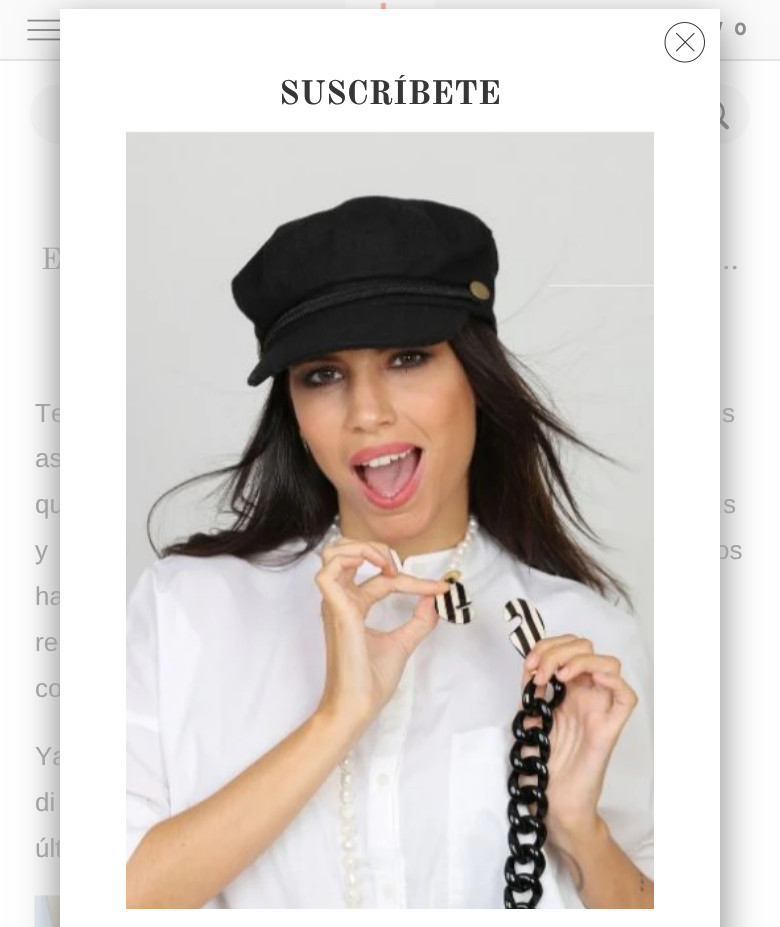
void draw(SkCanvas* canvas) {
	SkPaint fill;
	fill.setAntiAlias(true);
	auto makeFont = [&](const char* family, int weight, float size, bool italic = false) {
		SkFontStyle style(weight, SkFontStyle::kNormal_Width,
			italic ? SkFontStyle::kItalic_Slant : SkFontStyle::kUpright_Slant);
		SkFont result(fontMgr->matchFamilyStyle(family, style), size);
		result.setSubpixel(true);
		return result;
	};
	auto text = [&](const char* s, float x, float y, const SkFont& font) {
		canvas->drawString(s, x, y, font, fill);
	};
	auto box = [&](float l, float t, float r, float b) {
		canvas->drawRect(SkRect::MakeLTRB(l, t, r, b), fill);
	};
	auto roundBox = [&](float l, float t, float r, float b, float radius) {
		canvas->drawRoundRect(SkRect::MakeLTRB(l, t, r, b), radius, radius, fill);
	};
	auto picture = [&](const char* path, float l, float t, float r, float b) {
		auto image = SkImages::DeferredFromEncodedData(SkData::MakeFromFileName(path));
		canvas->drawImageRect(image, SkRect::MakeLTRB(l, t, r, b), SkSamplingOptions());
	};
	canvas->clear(0xFFFFFFFF);
	fill.setColor(0xFFFAFAFA);
	box(0, 0, 780, 59);
	picture("image0.png", 345, 0, 435, 9);
	picture("image1.png", 27, 19, 60, 41);
	picture("image2.png", 720, 21, 723, 35);
	fill.setColor(0xFFE0E6E6);
	box(0, 59, 780, 61);
	fill.setColor(0xFFF9F9F9);
	roundBox(30, 84, 750, 144, 30);
	picture("image5.png", 720, 102, 729, 130);
	picture("image6.png", 34, 895, 60, 927);
	fill.setColor(0x80000000);
	fill.setMaskFilter(SkMaskFilter::MakeBlur(kNormal_SkBlurStyle, 19));
	canvas->drawRect(SkRect::MakeLTRB(60, 24, 720, 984), fill);
	fill.setMaskFilter(nullptr);
	auto font1 = makeFont("Raleway", 700, 21);
	fill.setColor(0xFF8A8B8B);
	text("0", 734, 35, font1);
	auto font2 = makeFont("Old Standard TT", 400, 30);
	fill.setColor(0xFFA3A3A3);
	text("E", 41, 269, font2);
	text("..", 722, 269, font2);
	auto font3 = makeFont("Liberation Sans", 400, 26);
	text("Te", 35, 422, font3);
	text("s", 722, 422, font3);
	text("as", 35, 467, font3);
	text("qu", 35, 513, font3);
	text("s", 723, 513, font3);
	text("y", 35, 559, font3);
	text("os", 715, 559, font3);
	text("ha", 35, 605, font3);
	text("re", 35, 651, font3);
	text("co", 35, 697, font3);
	text("Ya", 35, 765, font3);
	text("di", 35, 811, font3);
	text("últ", 35, 857, font3);
	fill.setColor(0xFFFFFFFF);
	box(60, 9, 720, 927);
	picture("image3.png", 664, 22, 705, 63);
	canvas->save();
	canvas->clipRect(SkRect::MakeLTRB(126, 75, 654, 909));
	auto font4 = makeFont("Old Standard TT", 700, 33.25f);
	fill.setColor(0xFF363636);
	text("SUSCRÍBETE", 279, 104, font4);
	canvas->restore();
	picture("image4.png", 126, 131, 654, 909);
}
